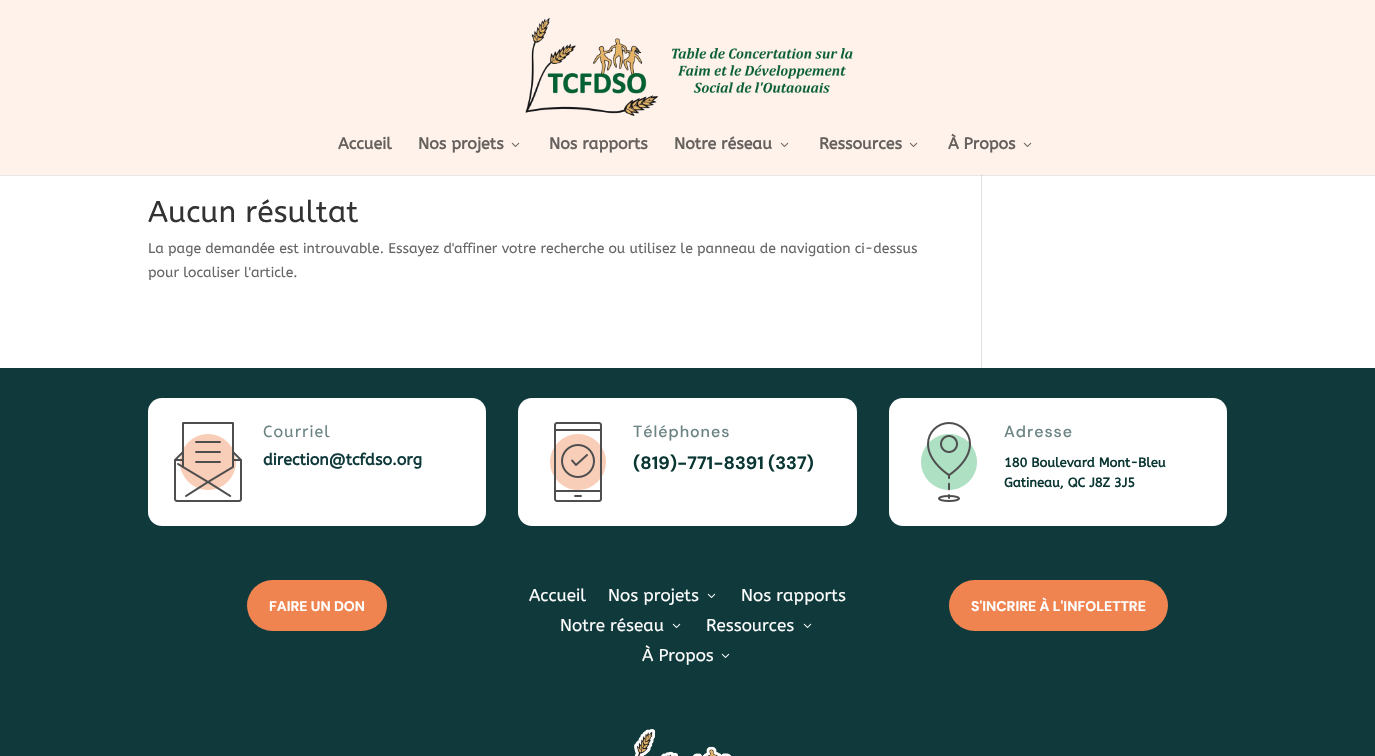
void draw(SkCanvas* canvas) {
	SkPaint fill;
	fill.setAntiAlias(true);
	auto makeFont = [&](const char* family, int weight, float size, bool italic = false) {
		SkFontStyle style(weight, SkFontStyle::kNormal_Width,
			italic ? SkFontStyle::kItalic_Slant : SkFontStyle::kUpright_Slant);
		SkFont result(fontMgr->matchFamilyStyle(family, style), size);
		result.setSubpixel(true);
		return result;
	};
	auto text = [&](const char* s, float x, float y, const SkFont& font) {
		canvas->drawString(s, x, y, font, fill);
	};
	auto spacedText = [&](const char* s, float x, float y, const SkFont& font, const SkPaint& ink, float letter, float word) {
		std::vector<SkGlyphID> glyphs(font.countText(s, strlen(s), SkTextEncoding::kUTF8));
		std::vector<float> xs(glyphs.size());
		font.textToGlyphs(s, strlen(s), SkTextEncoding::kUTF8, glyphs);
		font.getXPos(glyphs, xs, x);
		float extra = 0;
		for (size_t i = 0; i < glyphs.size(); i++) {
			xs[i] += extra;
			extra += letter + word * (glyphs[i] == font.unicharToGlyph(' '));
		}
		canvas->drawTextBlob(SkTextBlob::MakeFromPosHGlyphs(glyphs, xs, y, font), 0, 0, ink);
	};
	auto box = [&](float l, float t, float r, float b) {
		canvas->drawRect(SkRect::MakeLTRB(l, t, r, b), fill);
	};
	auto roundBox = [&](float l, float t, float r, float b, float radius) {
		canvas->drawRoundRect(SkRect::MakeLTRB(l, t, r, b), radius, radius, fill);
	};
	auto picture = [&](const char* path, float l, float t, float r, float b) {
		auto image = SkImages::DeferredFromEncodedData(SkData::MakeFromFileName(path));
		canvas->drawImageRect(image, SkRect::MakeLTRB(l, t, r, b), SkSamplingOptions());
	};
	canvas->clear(0xFFFFFFFF);
	fill.setColor(0xFFE6E6E6);
	box(0, 175, 1375, 176);
	fill.setColor(0xFFFFF2EA);
	box(0, 0, 1375, 175);
	picture("image0.png", 525, 17, 853, 116);
	picture("image1.png", 511, 142, 520, 147);
	picture("image1.png", 780, 142, 789, 147);
	picture("image1.png", 909, 142, 918, 147);
	picture("image1.png", 1023, 142, 1032, 147);
	fill.setColor(0xFFE2E2E2);
	box(981, 176, 982, 368);
	fill.setColor(0xFFCBCBCB);
	box(981, 175, 982, 176);
	fill.setColor(0xFF0F393B);
	box(0, 368, 1375, 756);
	fill.setColor(0xFFFFFFFF);
	roundBox(148, 398, 486, 526, 14);
	picture("image2.png", 174, 422, 242, 502);
	roundBox(518, 398, 857, 526, 14);
	picture("image3.png", 550, 422, 606, 502);
	roundBox(889, 398, 1227, 526, 14);
	picture("image4.png", 921, 422, 977, 502);
	fill.setColor(0xFFEF8451);
	roundBox(247, 580, 387, 631, 25.5f);
	picture("image5.png", 707, 593, 716, 598);
	picture("image6.png", 672, 623, 681, 628);
	picture("image6.png", 803, 623, 812, 628);
	picture("image6.png", 721, 653, 730, 658);
	roundBox(949, 580, 1168, 631, 25.5f);
	picture("image7.png", 634, 729, 732, 756);
	auto font1 = makeFont("ABeeZee", 700, 16);
	fill.setColor(0xFF66615E);
	text("Accueil", 338, 149, font1);
	text("Nos projets", 418, 149, font1);
	text("Nos rapports", 549, 149, font1);
	text("Notre réseau", 674, 149, font1);
	text("Ressources", 819, 149, font1);
	text("À Propos", 948, 149, font1);
	auto font2 = makeFont("ABeeZee", 400, 30);
	fill.setColor(0xFF333333);
	text("Aucun résultat", 148, 222, font2);
	auto font3 = makeFont("ABeeZee", 400, 14);
	fill.setColor(0xFF666666);
	text("La page demandée est introuvable. Essayez d'affiner votre recherche ou utilisez le panneau de navigation ci-dessus", 148, 253, font3);
	text("pour localiser l'article.", 148, 277, font3);
	auto font4 = makeFont("ABeeZee", 400, 16);
	fill.setColor(0xFF6B8483);
	spacedText("Courriel", 263, 437, font4, fill, 1, 0);
	fill.setColor(0xFF0F393B);
	text("direction@tcfdso.org", 263, 465, font1);
	auto font5 = makeFont("DM Sans", 500, 16);
	fill.setColor(0xFF6B8483);
	spacedText("Téléphones", 633, 437, font5, fill, 1, 0);
	auto font6 = makeFont("DM Sans", 700, 18);
	fill.setColor(0xFF093532);
	text("(819)-771-8391 (337)", 633, 469, font6);
	fill.setColor(0xFF6B8483);
	spacedText("Adresse", 1004, 437, font5, fill, 1, 0);
	auto font7 = makeFont("ABeeZee", 700, 13);
	fill.setColor(0xFF093532);
	text("180 Boulevard Mont-Bleu", 1004, 467, font7);
	text("Gatineau, QC J8Z 3J5", 1004, 487, font7);
	auto font8 = makeFont("DM Sans", 700, 14);
	fill.setColor(0xFFFFFFFF);
	text("FAIRE UN DON", 269, 611, font8);
	auto font9 = makeFont("ABeeZee", 400, 17);
	text("Accueil", 529, 601, font9);
	text("Nos projets", 608, 601, font9);
	text("Nos rapports", 741, 601, font9);
	text("Notre réseau", 560, 631, font9);
	text("Ressources", 706, 631, font9);
	text("À Propos", 642, 661, font9);
	text("S'INCRIRE À L'INFOLETTRE", 971, 611, font8);
}
